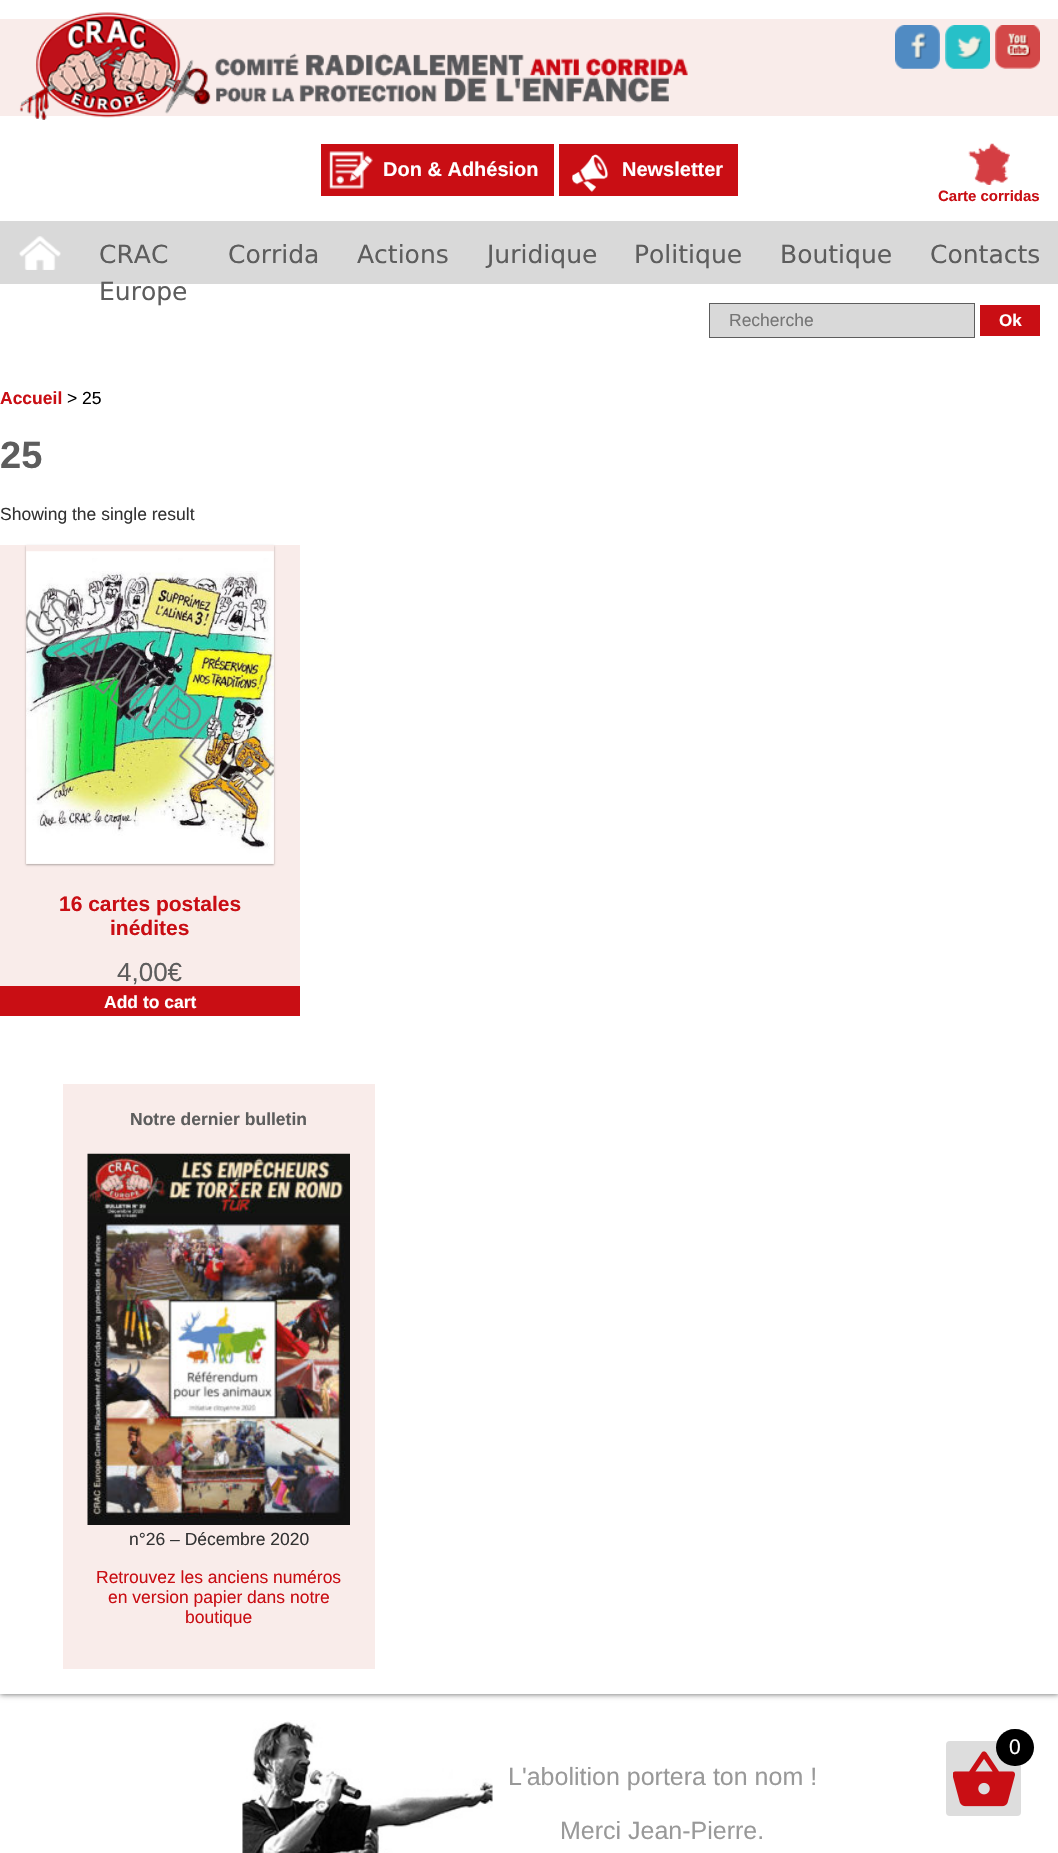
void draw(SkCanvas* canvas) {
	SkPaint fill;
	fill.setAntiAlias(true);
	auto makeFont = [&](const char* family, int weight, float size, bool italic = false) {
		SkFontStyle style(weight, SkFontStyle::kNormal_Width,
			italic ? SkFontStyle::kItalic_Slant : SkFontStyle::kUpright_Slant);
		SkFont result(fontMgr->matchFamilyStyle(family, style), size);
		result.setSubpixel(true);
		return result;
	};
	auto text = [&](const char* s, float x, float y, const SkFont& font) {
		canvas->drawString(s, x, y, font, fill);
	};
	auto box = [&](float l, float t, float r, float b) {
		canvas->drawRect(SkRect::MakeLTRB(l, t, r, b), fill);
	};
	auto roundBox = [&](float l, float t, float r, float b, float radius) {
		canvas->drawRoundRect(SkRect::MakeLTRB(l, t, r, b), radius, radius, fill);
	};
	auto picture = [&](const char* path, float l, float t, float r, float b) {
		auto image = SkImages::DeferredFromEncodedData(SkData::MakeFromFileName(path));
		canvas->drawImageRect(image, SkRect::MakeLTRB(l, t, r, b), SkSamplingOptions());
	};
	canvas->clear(0xFFFFFFFF);
	canvas->save();
	canvas->clipPath(SkPathBuilder(SkPathFillType::kEvenOdd).moveTo(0, 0).lineTo(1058, 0).lineTo(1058, 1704).lineTo(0, 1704).close().moveTo(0, 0).lineTo(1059, 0).lineTo(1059, 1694).lineTo(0, 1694).close().detach(), true);
	fill.setColor(0xFF5D5D5D);
	fill.setMaskFilter(SkMaskFilter::MakeBlur(kNormal_SkBlurStyle, 3));
	canvas->drawRect(SkRect::MakeLTRB(0, 0, 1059, 1694), fill);
	fill.setMaskFilter(nullptr);
	canvas->restore();
	fill.setColor(0xFFF9ECEA);
	box(0, 19, 1058, 116);
	picture("image0.png", 19, 12, 688, 120);
	picture("image1.png", 895, 25, 940, 69);
	picture("image2.png", 945, 25, 990, 69);
	picture("image3.png", 995, 25, 1040, 69);
	fill.setColor(0xFFC90E14);
	box(321, 144, 554, 196);
	picture("image4.png", 328, 151, 373, 189);
	box(559, 144, 738, 196);
	picture("image5.png", 572, 154, 609, 192);
	picture("image6.png", 968, 143, 1010, 185);
	fill.setColor(0xFFD9D9D9);
	box(0, 221, 1058, 284);
	picture("image7.png", 19, 236, 61, 270);
	canvas->drawRect(SkRect::MakeLTRB(709.5f, 303.5f, 974.5f, 337.5f), fill);
	fill.setStyle(SkPaint::kStroke_Style);
	fill.setStrokeWidth(1);
	fill.setColor(0xFF5D5D5D);
	canvas->drawRect(SkRect::MakeLTRB(709.5f, 303.5f, 974.5f, 337.5f), fill);
	fill.setStyle(SkPaint::kFill_Style);
	fill.setColor(0xFFC90E14);
	box(980, 305, 1040, 336);
	fill.setColor(0xFFF9ECEA);
	box(0, 545, 300, 986);
	canvas->save();
	canvas->clipPath(SkPathBuilder(SkPathFillType::kEvenOdd).moveTo(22, 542).lineTo(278, 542).lineTo(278, 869).lineTo(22, 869).close().moveTo(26, 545).lineTo(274, 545).lineTo(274, 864).lineTo(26, 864).close().detach(), true);
	fill.setColor(0x4D000000);
	fill.setMaskFilter(SkMaskFilter::MakeBlur(kNormal_SkBlurStyle, 1));
	canvas->drawRect(SkRect::MakeLTRB(26, 546, 274, 865), fill);
	fill.setMaskFilter(nullptr);
	canvas->restore();
	picture("image8.png", 26, 551, 274, 864);
	fill.setColor(0xFFC90E14);
	box(0, 986, 300, 1016);
	fill.setColor(0xFFF9ECEA);
	box(63, 1084, 375, 1669);
	picture("image9.png", 87, 1153, 350, 1525);
	fill.setColor(0xFFDDDDDD);
	roundBox(946, 1741, 1021, 1816, 4);
	picture("image10.png", 953, 1751, 1015, 1807);
	fill.setColor(0xFF000000);
	roundBox(996, 1729, 1034, 1766, 18.5f);
	picture("image11.png", 242, 1720, 493, 1853);
	auto font1 = makeFont("Liberation Sans", 700, 20);
	fill.setColor(0xFFFFFFFF);
	text("Don & Adhésion", 383, 176, font1);
	text("Newsletter", 622, 176, font1);
	auto font2 = makeFont("Liberation Sans", 700, 15);
	fill.setColor(0xFFC90E14);
	text("Carte corridas", 938, 201, font2);
	auto font3 = makeFont("DejaVu Sans", 400, 25);
	fill.setColor(0xFF5D5D5D);
	text("CRAC", 99, 263, font3);
	text("Europe", 99, 300, font3);
	text("Corrida", 228, 263, font3);
	text("Actions", 357, 263, font3);
	text("Juridique", 487, 263, font3);
	text("Politique", 634, 263, font3);
	text("Boutique", 780, 263, font3);
	text("Contacts", 930, 263, font3);
	auto font4 = makeFont("Liberation Sans", 400, 17.5f);
	fill.setColor(0xFF757575);
	text("Recherche", 729, 326, font4);
	auto font5 = makeFont("Liberation Sans", 700, 17);
	fill.setColor(0xFFFFFFFF);
	text("Ok", 999, 326, font5);
	auto font6 = makeFont("Liberation Sans", 700, 17.5f);
	fill.setColor(0xFFC90E14);
	text("Accueil", 0, 404, font6);
	fill.setColor(0xFF000000);
	text("> 25", 67, 404, font4);
	auto font7 = makeFont("Liberation Sans", 700, 38);
	fill.setColor(0xFF5D5D5D);
	text("25", 0, 468, font7);
	fill.setColor(0xFF333333);
	text("Showing the single result", 0, 520, font4);
	auto font8 = makeFont("Liberation Sans", 700, 21);
	fill.setColor(0xFFC90E14);
	text("16 cartes postales", 59, 911, font8);
	text("inédites", 110, 935, font8);
	auto font9 = makeFont("Liberation Sans", 400, 26);
	fill.setColor(0xFF5D5D5D);
	text("4,00€", 117, 981, font9);
	fill.setColor(0xFFFFFFFF);
	text("Add to cart", 104, 1008, font6);
	fill.setColor(0xFF5D5D5D);
	text("Notre dernier bulletin", 130, 1125, font6);
	fill.setColor(0xFF333333);
	text("n°26 – Décembre 2020", 129, 1545, font4);
	fill.setColor(0xFFC90E14);
	text("Retrouvez les anciens numéros", 96, 1583, font4);
	text("en version papier dans notre", 108, 1603, font4);
	text("boutique", 185, 1623, font4);
	auto font10 = makeFont("Liberation Sans", 400, 21);
	fill.setColor(0xFFFFFFFF);
	text("0", 1009, 1754, font10);
	auto font11 = makeFont("Liberation Sans", 400, 25);
	fill.setColor(0xFF999999);
	text("L'abolition portera ton nom !", 508, 1785, font11);
	text("Merci Jean-Pierre.", 560, 1839, font11);
}
